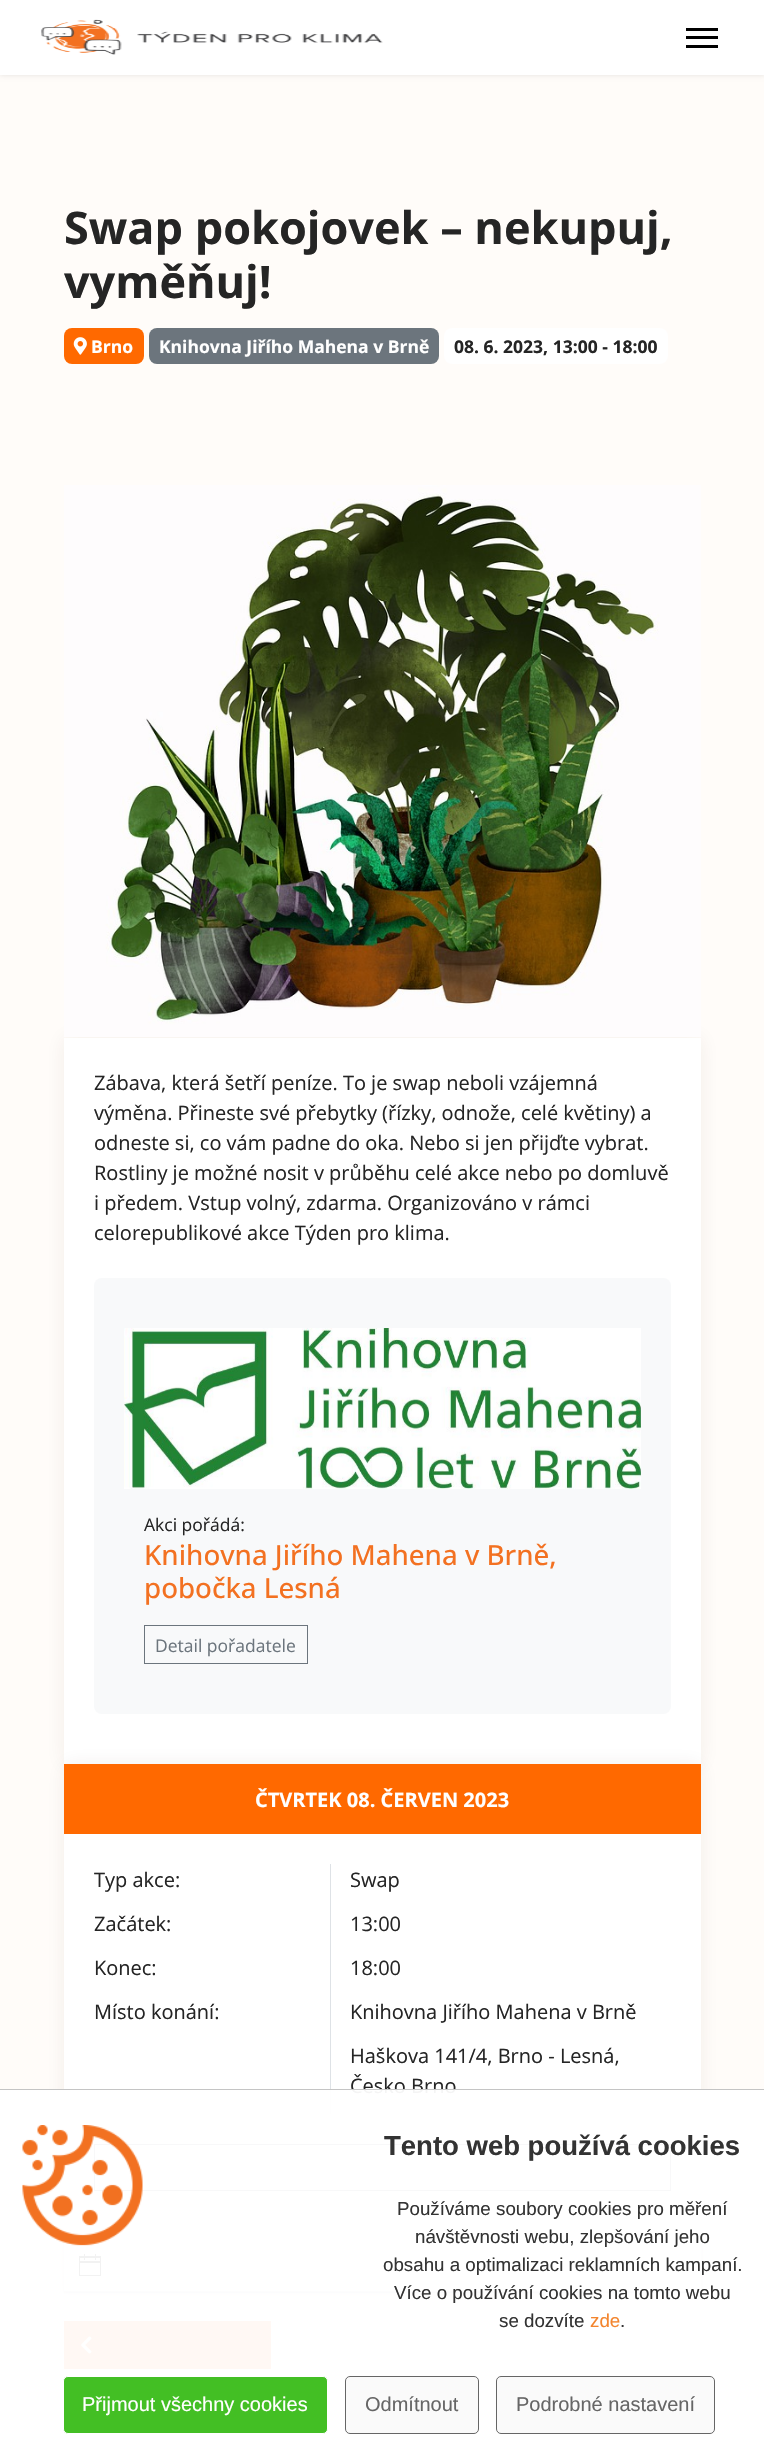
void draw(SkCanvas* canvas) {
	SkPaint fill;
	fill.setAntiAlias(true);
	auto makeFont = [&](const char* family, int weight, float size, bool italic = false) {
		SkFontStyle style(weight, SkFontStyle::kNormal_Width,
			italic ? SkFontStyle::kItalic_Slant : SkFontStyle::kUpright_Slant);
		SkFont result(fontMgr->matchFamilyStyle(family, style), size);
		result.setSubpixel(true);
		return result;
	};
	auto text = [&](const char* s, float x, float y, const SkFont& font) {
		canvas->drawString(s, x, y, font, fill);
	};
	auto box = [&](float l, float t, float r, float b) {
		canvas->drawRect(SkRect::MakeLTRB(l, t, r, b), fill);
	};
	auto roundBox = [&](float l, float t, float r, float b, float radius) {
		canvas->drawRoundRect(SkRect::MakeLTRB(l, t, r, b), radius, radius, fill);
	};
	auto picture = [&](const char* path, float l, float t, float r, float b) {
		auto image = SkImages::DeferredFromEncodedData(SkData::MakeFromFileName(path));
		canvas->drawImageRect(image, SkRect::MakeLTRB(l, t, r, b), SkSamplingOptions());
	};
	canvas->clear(0xFFFFFCF9);
	fill.setColor(0x1A000000);
	fill.setMaskFilter(SkMaskFilter::MakeBlur(kNormal_SkBlurStyle, 2.5f));
	canvas->drawRect(SkRect::MakeLTRB(0, 0, 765, 75), fill);
	fill.setMaskFilter(nullptr);
	fill.setColor(0xFFFFFFFF);
	box(0, 0, 764, 75);
	picture("image0.png", 41, 19, 383, 55);
	fill.setColor(0xFF000000);
	box(686, 28, 718, 31);
	box(686, 36, 718, 39);
	box(686, 45, 718, 48);
	fill.setColor(0xFFFF6900);
	roundBox(64, 328, 144, 364, 8);
	picture("image1.png", 73, 337, 87, 355);
	fill.setColor(0xFF6C757D);
	roundBox(149, 328, 439, 364, 8);
	fill.setColor(0xFFFFFFFF);
	roundBox(444, 328, 668, 364, 8);
	fill.setColor(0x124B250A);
	fill.setMaskFilter(SkMaskFilter::MakeBlur(kNormal_SkBlurStyle, 9.5f));
	canvas->drawRect(SkRect::MakeLTRB(64, 1038, 701, 1764), fill);
	fill.setMaskFilter(nullptr);
	picture("image2.png", 64, 485, 701, 1037);
	fill.setColor(0xFFFFFFFF);
	box(64, 1038, 701, 1764);
	fill.setColor(0xFFF8F9FA);
	roundBox(94, 1278, 671, 1714, 8);
	picture("image3.png", 124, 1328, 641, 1489);
	fill.setStyle(SkPaint::kStroke_Style);
	fill.setStrokeWidth(1);
	fill.setColor(0xFF6C757D);
	canvas->drawRect(SkRect::MakeLTRB(144.5f, 1625.5f, 307.5f, 1663.5f), fill);
	fill.setStyle(SkPaint::kFill_Style);
	fill.setColor(0x124B250A);
	fill.setMaskFilter(SkMaskFilter::MakeBlur(kNormal_SkBlurStyle, 9.5f));
	canvas->drawRoundRect(SkRect::MakeLTRB(64, 1764, 701, 2291), 8, 8, fill);
	fill.setMaskFilter(nullptr);
	fill.setColor(0xFFFFFFFF);
	box(64, 1834, 701, 2241);
	fill.setColor(0xFFFF6900);
	box(64, 1764, 701, 1834);
	fill.setColor(0xFFDEE2E6);
	box(330, 1864, 331, 2114);
	fill.setStyle(SkPaint::kStroke_Style);
	fill.setColor(0xFF6C757D);
	canvas->drawRect(SkRect::MakeLTRB(94.5f, 2144.5f, 670.5f, 2190.5f), fill);
	fill.setStyle(SkPaint::kFill_Style);
	fill.setColor(0x14000000);
	fill.setMaskFilter(SkMaskFilter::MakeBlur(kNormal_SkBlurStyle, 1));
	canvas->drawRect(SkRect::MakeLTRB(64, 2243, 701, 2293), fill);
	fill.setMaskFilter(nullptr);
	fill.setColor(0x12000000);
	fill.setMaskFilter(SkMaskFilter::MakeBlur(kNormal_SkBlurStyle, 1));
	canvas->drawRect(SkRect::MakeLTRB(64, 2243, 701, 2293), fill);
	fill.setMaskFilter(nullptr);
	fill.setColor(0x1A32325D);
	fill.setMaskFilter(SkMaskFilter::MakeBlur(kNormal_SkBlurStyle, 3));
	canvas->drawRect(SkRect::MakeLTRB(64, 2244, 701, 2294), fill);
	fill.setMaskFilter(nullptr);
	fill.setStyle(SkPaint::kStroke_Style);
	fill.setStrokeWidth(0.6f);
	fill.setColor(0x2B32325D);
	canvas->drawRect(SkRect::MakeLTRB(64.3f, 2241.3f, 702.7f, 2292.7f), fill);
	fill.setStyle(SkPaint::kFill_Style);
	fill.setColor(0xFFFFFFFF);
	box(64, 2241, 701, 2291);
	picture("image4.png", 79, 2254, 101, 2276);
	fill.setColor(0xFFF37121);
	box(64, 2321, 271, 2369);
	picture("image5.png", 81, 2336, 92, 2354);
	auto font1 = makeFont("Open Sans", 700, 45);
	fill.setColor(0xFF252525);
	text("Swap pokojovek – nekupuj,", 64, 244, font1);
	text("vyměňuj!", 64, 298, font1);
	auto font2 = makeFont("Open Sans", 700, 17.5f);
	fill.setColor(0xFFFFFFFF);
	text("Brno", 91, 353, font2);
	text("Knihovna Jiřího Mahena v Brně", 159, 353, font2);
	fill.setColor(0xFF252525);
	text("08. 6. 2023, 13:00 - 18:00", 454, 353, font2);
	auto font3 = makeFont("Open Sans", 400, 20);
	text("Zábava, která šetří peníze. To je swap neboli vzájemná", 94, 1090, font3);
	text("výměna. Přineste své přebytky (řízky, odnože, celé květiny) a", 94, 1120, font3);
	text("odneste si, co vám padne do oka. Nebo si jen přijďte vybrat.", 94, 1150, font3);
	text("Rostliny je možné nosit v průběhu celé akce nebo po domluvě", 94, 1180, font3);
	text("i předem. Vstup volný, zdarma. Organizováno v rámci", 94, 1210, font3);
	text("celorepublikové akce Týden pro klima.", 94, 1240, font3);
	auto font4 = makeFont("Open Sans", 400, 17.5f);
	text("Akci pořádá:", 144, 1531, font4);
	auto font5 = makeFont("Open Sans", 500, 27.75f);
	fill.setColor(0xFFF37121);
	text("Knihovna Jiřího Mahena v Brně,", 144, 1565, font5);
	text("pobočka Lesná", 144, 1598, font5);
	fill.setColor(0xFF6C757D);
	text("Detail pořadatele", 155, 1652, font4);
	auto font6 = makeFont("Open Sans", 700, 20);
	fill.setColor(0xFFFFFFFF);
	text("ČTVRTEK 08. ČERVEN 2023", 255, 1807, font6);
	fill.setColor(0xFF252525);
	text("Typ akce:", 94, 1887, font3);
	text("Začátek:", 94, 1931, font3);
	text("Konec:", 94, 1975, font3);
	text("Místo konání:", 94, 2019, font3);
	text("Swap", 350, 1887, font3);
	text("13:00", 350, 1931, font3);
	text("18:00", 350, 1975, font3);
	text("Knihovna Jiřího Mahena v Brně", 350, 2019, font3);
	text("Haškova 141/4, Brno - Lesná,", 350, 2063, font3);
	text("Česko Brno", 350, 2093, font3);
	fill.setColor(0xF2FFFFFF);
	box(0, 2090, 764, 2441);
	fill.setColor(0xFFC4C4C4);
	box(0, 2089, 764, 2090);
	picture("image6.png", 22, 2125, 143, 2246);
	auto font7 = makeFont("Liberation Sans", 700, 27.5f);
	fill.setColor(0xFF333333);
	text("Tento web používá cookies", 384, 2155, font7);
	auto font8 = makeFont("Liberation Sans", 400, 18.75f);
	text("Používáme soubory cookies pro měření", 397, 2215, font8);
	text("návštěvnosti webu, zlepšování jeho", 415, 2243, font8);
	text("obsahu a optimalizaci reklamních kampaní.", 383, 2271, font8);
	text("Více o používání cookies na tomto webu", 394, 2299, font8);
	text("se dozvíte", 499, 2327, font8);
	fill.setColor(0xFFF3852E);
	text("zde", 590, 2327, font8);
	fill.setColor(0xFF333333);
	text(".", 620, 2327, font8);
	fill.setColor(0xFF43BF24);
	canvas->drawRoundRect(SkRect::MakeLTRB(63.5f, 2376.5f, 327.5f, 2433.5f), 4.5f, 4.5f, fill);
	fill.setStyle(SkPaint::kStroke_Style);
	fill.setStrokeWidth(1);
	fill.setColor(0xFFFFFFFF);
	canvas->drawRoundRect(SkRect::MakeLTRB(63.5f, 2376.5f, 327.5f, 2433.5f), 4.5f, 4.5f, fill);
	auto font9 = makeFont("Liberation Sans", 400, 20);
	fill.setStyle(SkPaint::kFill_Style);
	text("Přijmout všechny cookies", 82, 2411, font9);
	fill.setColor(0xFFFAFAFA);
	canvas->drawRoundRect(SkRect::MakeLTRB(345.5f, 2376.5f, 478.5f, 2433.5f), 4.5f, 4.5f, fill);
	fill.setStyle(SkPaint::kStroke_Style);
	fill.setColor(0xFF666666);
	canvas->drawRoundRect(SkRect::MakeLTRB(345.5f, 2376.5f, 478.5f, 2433.5f), 4.5f, 4.5f, fill);
	fill.setStyle(SkPaint::kFill_Style);
	text("Odmítnout", 365, 2411, font9);
	fill.setColor(0xFFFAFAFA);
	canvas->drawRoundRect(SkRect::MakeLTRB(496.5f, 2376.5f, 714.5f, 2433.5f), 4.5f, 4.5f, fill);
	fill.setStyle(SkPaint::kStroke_Style);
	fill.setColor(0xFF666666);
	canvas->drawRoundRect(SkRect::MakeLTRB(496.5f, 2376.5f, 714.5f, 2433.5f), 4.5f, 4.5f, fill);
	fill.setStyle(SkPaint::kFill_Style);
	text("Podrobné nastavení", 516, 2411, font9);
}
